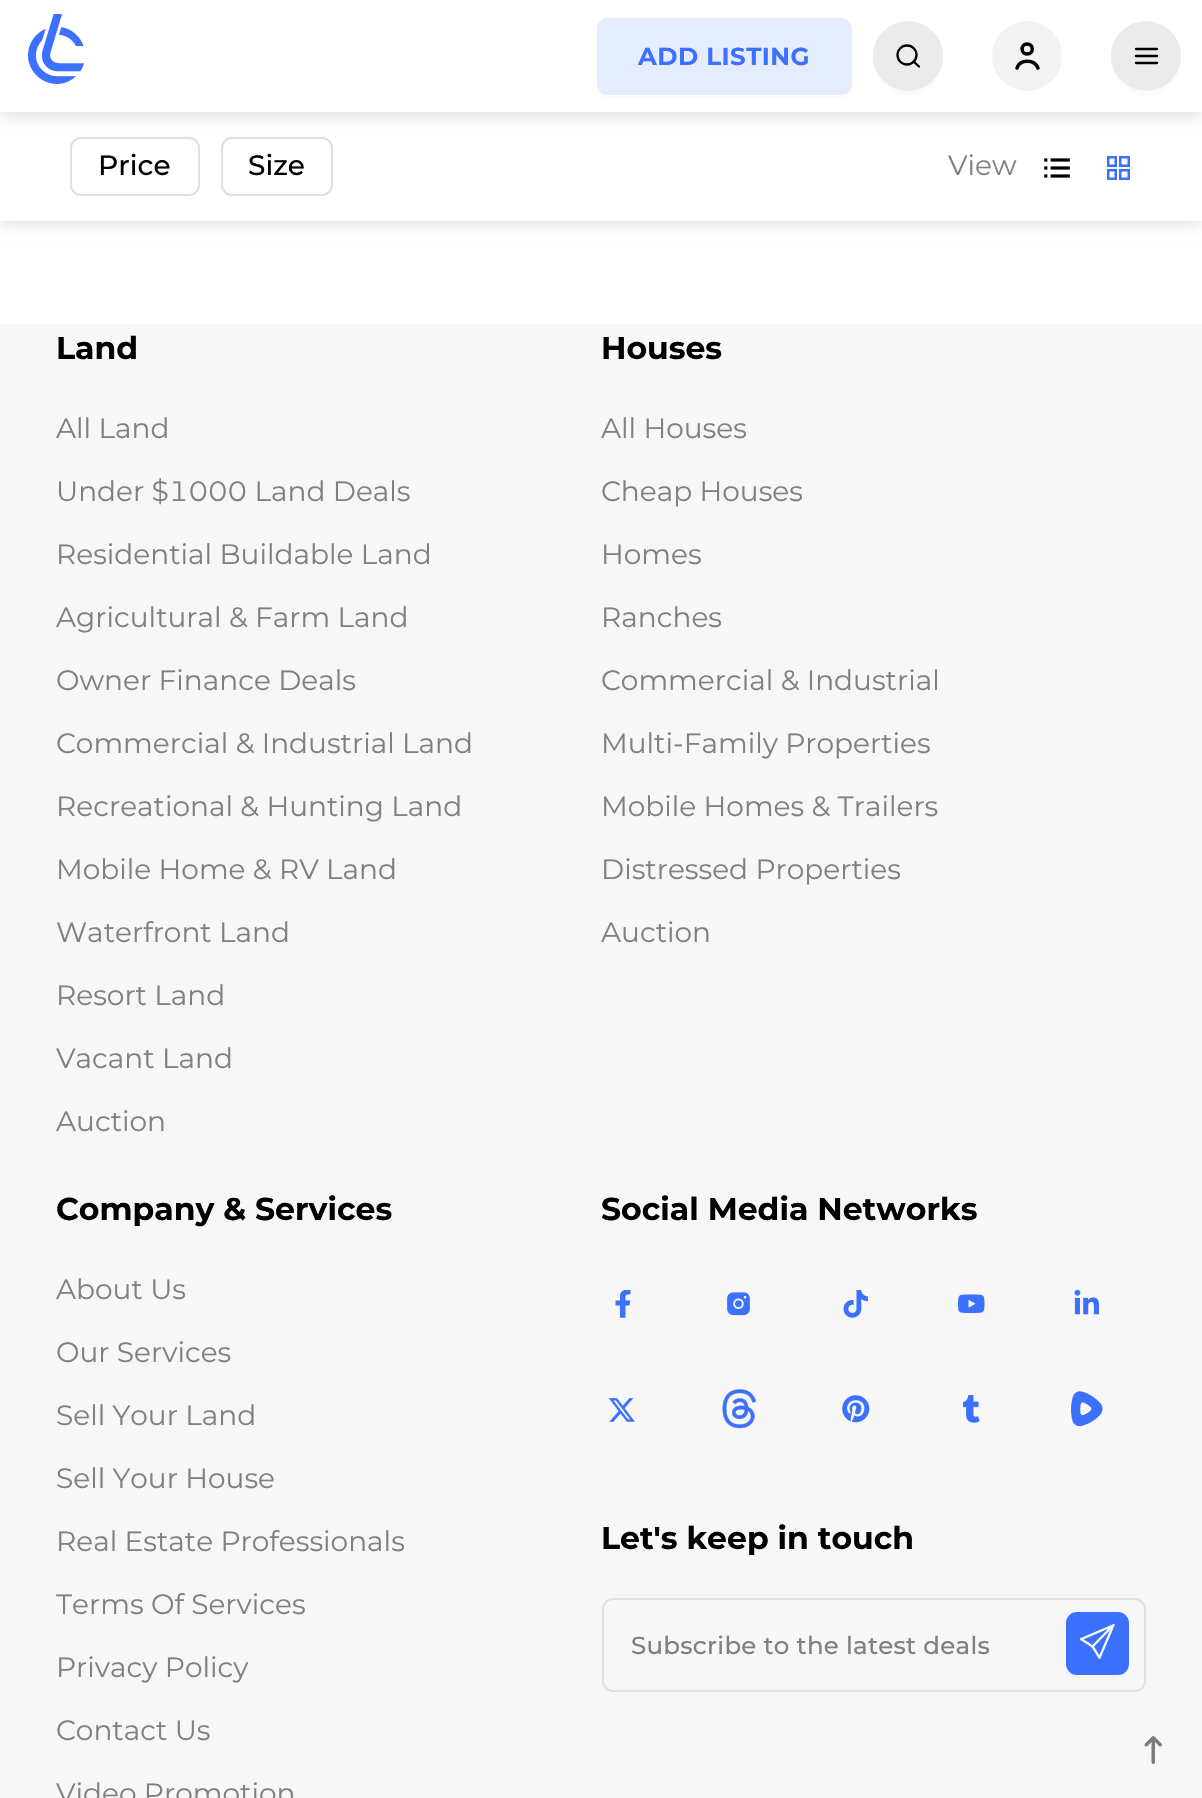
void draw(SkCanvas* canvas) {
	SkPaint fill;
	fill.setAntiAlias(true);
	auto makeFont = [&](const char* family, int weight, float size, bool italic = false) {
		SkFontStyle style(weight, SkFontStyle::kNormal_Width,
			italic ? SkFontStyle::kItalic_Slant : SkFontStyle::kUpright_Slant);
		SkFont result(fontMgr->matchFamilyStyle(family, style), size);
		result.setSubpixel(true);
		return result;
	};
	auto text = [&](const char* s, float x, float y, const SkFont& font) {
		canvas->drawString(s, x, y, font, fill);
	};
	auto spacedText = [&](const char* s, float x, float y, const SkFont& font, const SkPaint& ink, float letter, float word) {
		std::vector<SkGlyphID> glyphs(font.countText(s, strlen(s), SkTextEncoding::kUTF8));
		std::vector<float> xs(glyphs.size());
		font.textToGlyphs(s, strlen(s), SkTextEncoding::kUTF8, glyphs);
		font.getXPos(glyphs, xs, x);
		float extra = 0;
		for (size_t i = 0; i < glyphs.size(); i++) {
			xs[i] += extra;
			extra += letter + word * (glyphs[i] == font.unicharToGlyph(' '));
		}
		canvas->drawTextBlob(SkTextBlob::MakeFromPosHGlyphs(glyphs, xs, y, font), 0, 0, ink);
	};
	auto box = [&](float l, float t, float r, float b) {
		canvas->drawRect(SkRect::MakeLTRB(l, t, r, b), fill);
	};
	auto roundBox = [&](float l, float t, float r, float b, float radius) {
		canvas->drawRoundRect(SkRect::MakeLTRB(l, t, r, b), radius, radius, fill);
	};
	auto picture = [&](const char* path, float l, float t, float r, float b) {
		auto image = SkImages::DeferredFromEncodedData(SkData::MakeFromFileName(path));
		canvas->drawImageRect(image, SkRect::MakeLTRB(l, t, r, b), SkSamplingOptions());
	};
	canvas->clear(0xFFFFFFFF);
	fill.setColor(0x1F000000);
	fill.setMaskFilter(SkMaskFilter::MakeBlur(kNormal_SkBlurStyle, 7));
	canvas->drawRect(SkRect::MakeLTRB(0, 116, 1202, 224), fill);
	fill.setMaskFilter(nullptr);
	fill.setColor(0xFFFFFFFF);
	box(0, 112, 1202, 221);
	fill.setStyle(SkPaint::kStroke_Style);
	fill.setStrokeWidth(2);
	fill.setColor(0xFFE0E0E0);
	canvas->drawRoundRect(SkRect::MakeLTRB(71, 138, 199, 195), 10, 10, fill);
	canvas->drawRoundRect(SkRect::MakeLTRB(222, 138, 332, 195), 10, 10, fill);
	fill.setStyle(SkPaint::kFill_Style);
	fill.setColor(0x1F000000);
	fill.setMaskFilter(SkMaskFilter::MakeBlur(kNormal_SkBlurStyle, 7));
	canvas->drawRect(SkRect::MakeLTRB(0, 4, 1202, 116), fill);
	fill.setMaskFilter(nullptr);
	fill.setColor(0xFFFFFFFF);
	box(0, 0, 1202, 112);
	picture("image0.png", 28, 14, 84, 84);
	fill.setColor(0xFFFBFBFB);
	canvas->drawPath(SkPathBuilder().moveTo(597, 86).lineTo(597, 87).cubicTo(597, 93, 602, 98, 608, 98).lineTo(841, 98).cubicTo(847, 98, 852, 93, 852, 87).lineTo(852, 86).cubicTo(851, 91, 847, 94, 842, 94).lineTo(607, 94).cubicTo(602, 94, 598, 91, 597, 86).close().detach(), fill);
	fill.setColor(0xFFE5ECFE);
	roundBox(597, 18, 852, 95, 11);
	fill.setColor(0xFFFBFBFB);
	canvas->drawPath(SkPathBuilder().moveTo(873, 56).cubicTo(869, 92, 916, 110, 937, 80).cubicTo(941, 74, 943, 67, 943, 60).cubicTo(939, 92, 897, 102, 879, 76).cubicTo(875, 70, 873, 63, 873, 56).close().detach(), fill);
	fill.setColor(0xFFEBEBEB);
	canvas->drawCircle(908, 56, 35, fill);
	fill.setStyle(SkPaint::kStroke_Style);
	fill.setStrokeWidth(2.3f);
	fill.setColor(0xFF000000);
	canvas->drawCircle(907, 55, 9.5f, fill);
	fill.setStrokeCap(SkPaint::kRound_Cap);
	fill.setStrokeJoin(SkPaint::kRound_Join);
	canvas->drawPath(SkPathBuilder().moveTo(919, 66.5f).lineTo(913.5f, 61.5f).detach(), fill);
	fill.setStyle(SkPaint::kFill_Style);
	fill.setColor(0xFFF2F2F2);
	canvas->drawCircle(1027, 56, 35, fill);
	fill.setStyle(SkPaint::kStroke_Style);
	fill.setStrokeWidth(3.5f);
	fill.setStrokeJoin(SkPaint::kMiter_Join);
	fill.setColor(0xFF000000);
	canvas->drawPath(SkPathBuilder().moveTo(1017, 68).cubicTo(1020, 59, 1034.5f, 59, 1038, 68).moveTo(1027, 54).cubicTo(1020.5f, 54, 1020.5f, 44, 1027, 44).cubicTo(1034, 44, 1034, 54, 1027, 54).close().detach(), fill);
	fill.setStyle(SkPaint::kFill_Style);
	fill.setColor(0xFFFBFBFB);
	canvas->drawPath(SkPathBuilder().moveTo(1111, 56).cubicTo(1107, 92, 1154, 110, 1175, 80).cubicTo(1179, 74, 1181, 67, 1181, 60).cubicTo(1177, 92, 1135, 102, 1117, 76).cubicTo(1113, 70, 1111, 63, 1111, 56).close().detach(), fill);
	fill.setColor(0xFFEBEBEB);
	canvas->drawCircle(1146, 56, 35, fill);
	fill.setStyle(SkPaint::kStroke_Style);
	fill.setStrokeWidth(2.3f);
	fill.setStrokeJoin(SkPaint::kRound_Join);
	fill.setColor(0xFF000000);
	canvas->drawPath(SkPathBuilder().moveTo(1136, 56).lineTo(1157, 56).moveTo(1136, 49).lineTo(1157, 49).moveTo(1136, 63).lineTo(1157, 63).detach(), fill);
	picture("image1.png", 1044, 158, 1070, 178);
	fill.setStrokeWidth(2.5f);
	fill.setStrokeCap(SkPaint::kButt_Cap);
	fill.setStrokeJoin(SkPaint::kMiter_Join);
	fill.setColor(0xFF3B71FE);
	canvas->drawRect(SkRect::MakeLTRB(1108.25f, 157.25f, 1115.75f, 165.75f), fill);
	canvas->drawRect(SkRect::MakeLTRB(1120.25f, 157.25f, 1128.75f, 165.75f), fill);
	canvas->drawRect(SkRect::MakeLTRB(1108.25f, 170.25f, 1115.75f, 178.75f), fill);
	canvas->drawRect(SkRect::MakeLTRB(1120.25f, 170.25f, 1128.75f, 178.75f), fill);
	fill.setStyle(SkPaint::kFill_Style);
	fill.setColor(0xFFF7F7F7);
	box(0, 324, 1202, 1798);
	picture("image2.png", 615, 1290, 631, 1318);
	picture("image3.png", 727, 1292, 750, 1316);
	picture("image4.png", 843, 1290, 868, 1318);
	picture("image5.png", 958, 1294, 985, 1314);
	picture("image6.png", 1074, 1290, 1099, 1315);
	picture("image7.png", 608, 1398, 635, 1422);
	picture("image8.png", 722, 1389, 757, 1429);
	picture("image9.png", 842, 1395, 870, 1423);
	picture("image10.png", 962, 1395, 980, 1423);
	picture("image11.png", 1071, 1391, 1103, 1426);
	fill.setStyle(SkPaint::kStroke_Style);
	fill.setStrokeWidth(2);
	fill.setColor(0xFFE0E0E0);
	canvas->drawRoundRect(SkRect::MakeLTRB(603, 1599, 1145, 1691), 10, 10, fill);
	fill.setStyle(SkPaint::kFill_Style);
	fill.setColor(0xFFF3F3F3);
	canvas->drawPath(SkPathBuilder().moveTo(1066, 1667).cubicTo(1066, 1678, 1075, 1678, 1084, 1678).lineTo(1104, 1678).cubicTo(1129, 1678, 1129, 1678, 1129, 1653).lineTo(1129, 1624).lineTo(1129, 1664).cubicTo(1129, 1670, 1124, 1675, 1118, 1675).lineTo(1076, 1675).cubicTo(1071, 1675, 1067, 1671, 1066, 1667).close().detach(), fill);
	fill.setColor(0xFF3B71FE);
	roundBox(1066, 1612, 1129, 1675, 11);
	picture("image12.png", 1080, 1624, 1115, 1659);
	picture("image13.png", 1144, 1736, 1162, 1764);
	auto font1 = makeFont("Montserrat", 700, 24.5f);
	spacedText("ADD LISTING", 638, 65, font1, fill, 0.5f, 0);
	auto font2 = makeFont("Montserrat", 500, 28);
	fill.setColor(0xFF000000);
	text("Price", 98, 175, font2);
	text("Size", 248, 175, font2);
	auto font3 = makeFont("Montserrat", 400, 28);
	fill.setColor(0xFF808080);
	text("View", 948, 175, font3);
	auto font4 = makeFont("Montserrat", 700, 31.5f);
	fill.setColor(0xFF000000);
	text("Land", 56, 359, font4);
	fill.setColor(0xFF808080);
	text("All Land", 56, 438, font3);
	auto font5 = makeFont("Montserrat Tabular", 400, 28);
	text("Under $1000 Land Deals", 56, 501, font5);
	text("Residential Buildable Land", 56, 564, font3);
	text("Agricultural & Farm Land", 56, 627, font3);
	text("Owner Finance Deals", 56, 690, font3);
	text("Commercial & Industrial Land", 56, 753, font3);
	text("Recreational & Hunting Land", 56, 816, font3);
	text("Mobile Home & RV Land", 56, 879, font3);
	text("Waterfront Land", 56, 942, font3);
	text("Resort Land", 56, 1005, font3);
	text("Vacant Land", 56, 1068, font3);
	text("Auction", 56, 1131, font3);
	fill.setColor(0xFF000000);
	text("Houses", 601, 359, font4);
	fill.setColor(0xFF808080);
	text("All Houses", 601, 438, font3);
	text("Cheap Houses", 601, 501, font3);
	text("Homes", 601, 564, font3);
	text("Ranches", 601, 627, font3);
	text("Commercial & Industrial", 601, 690, font3);
	text("Multi-Family Properties", 601, 753, font3);
	text("Mobile Homes & Trailers", 601, 816, font3);
	text("Distressed Properties", 601, 879, font3);
	text("Auction", 601, 942, font3);
	fill.setColor(0xFF000000);
	text("Company & Services", 56, 1220, font4);
	fill.setColor(0xFF808080);
	text("About Us", 56, 1299, font3);
	text("Our Services", 56, 1362, font3);
	text("Sell Your Land", 56, 1425, font3);
	text("Sell Your House", 56, 1488, font3);
	text("Real Estate Professionals", 56, 1551, font3);
	text("Terms Of Services", 56, 1614, font3);
	text("Privacy Policy", 56, 1677, font3);
	text("Contact Us", 56, 1740, font3);
	text("Video Promotion", 56, 1803, font3);
	fill.setColor(0xFF000000);
	text("Social Media Networks", 601, 1220, font4);
	text("Let's keep in touch", 601, 1549, font4);
	auto font6 = makeFont("Montserrat", 500, 24.5f);
	fill.setColor(0xFF808080);
	spacedText("Subscribe to the latest deals", 631, 1654, font6, fill, 0.25f, 0);
}
